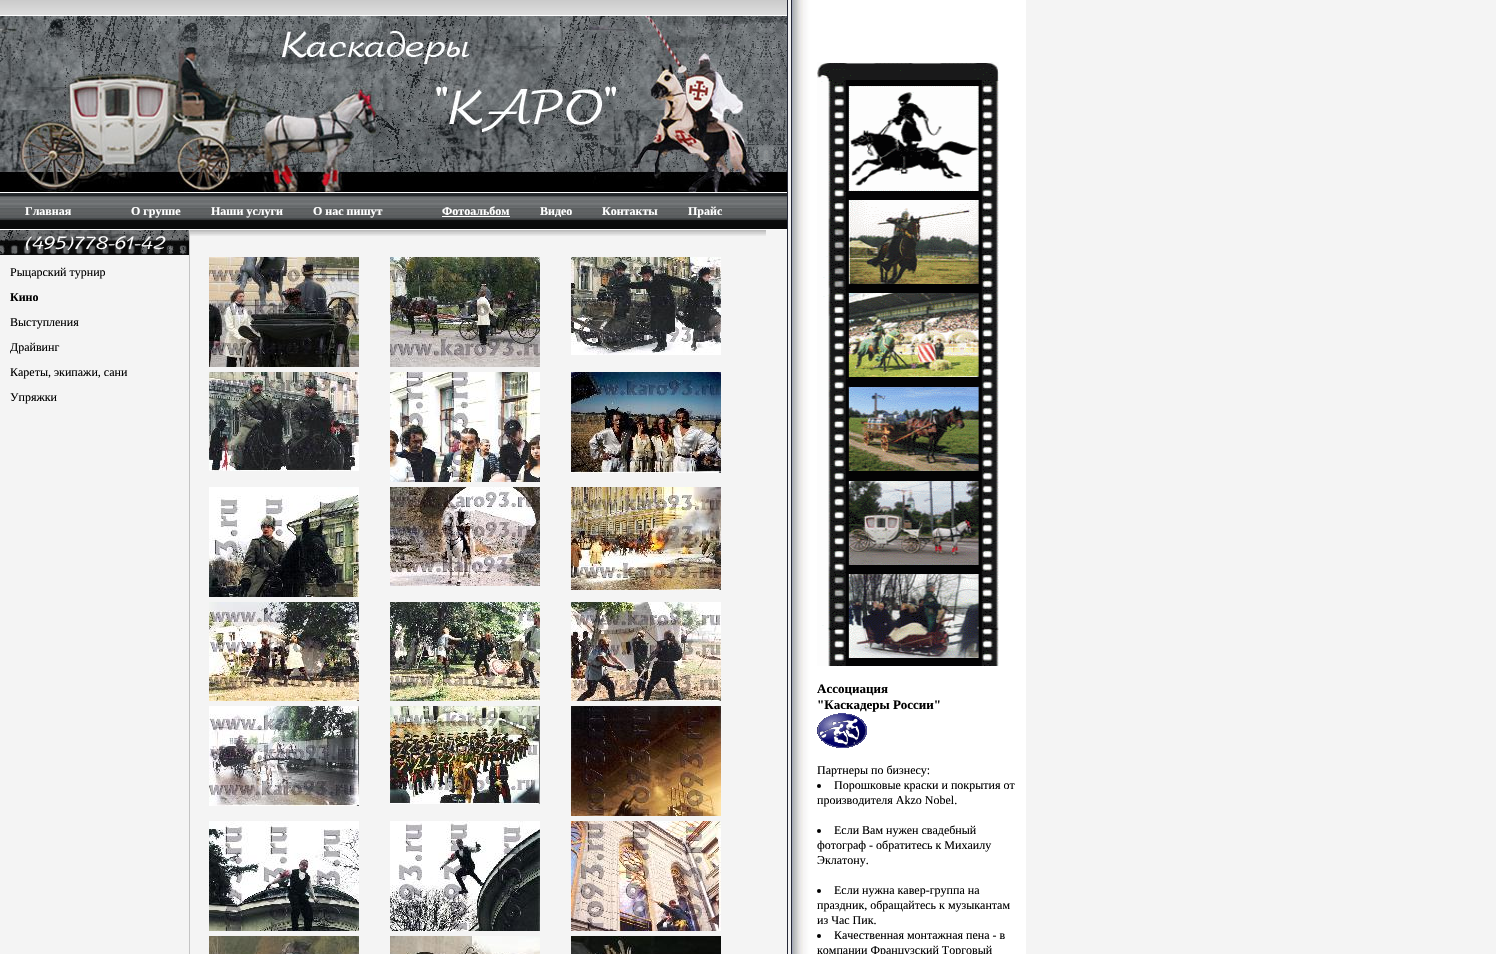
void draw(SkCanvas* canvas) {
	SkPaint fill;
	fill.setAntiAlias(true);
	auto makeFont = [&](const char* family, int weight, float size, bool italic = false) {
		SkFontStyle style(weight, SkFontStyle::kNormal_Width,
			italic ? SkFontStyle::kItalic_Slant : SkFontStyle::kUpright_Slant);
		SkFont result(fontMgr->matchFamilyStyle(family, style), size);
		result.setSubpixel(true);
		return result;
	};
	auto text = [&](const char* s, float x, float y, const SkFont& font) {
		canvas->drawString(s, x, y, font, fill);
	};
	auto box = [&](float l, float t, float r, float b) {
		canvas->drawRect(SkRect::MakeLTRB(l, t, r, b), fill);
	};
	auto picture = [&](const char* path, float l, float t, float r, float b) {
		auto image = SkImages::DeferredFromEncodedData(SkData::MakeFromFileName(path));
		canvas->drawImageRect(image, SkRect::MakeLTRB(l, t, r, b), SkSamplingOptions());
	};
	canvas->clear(0xFFF4F4F4);
	picture("image0.png", 0, 0, 787, 15);
	fill.setColor(0xFFFFFFFF);
	box(0, 15, 787, 16);
	picture("image1.png", 766, 16, 787, 192);
	picture("image2.png", 0, 16, 766, 192);
	box(0, 192, 787, 193);
	picture("image3.png", 0, 193, 787, 229);
	box(442, 216, 510, 217);
	box(0, 229, 787, 230);
	picture("image4.png", 0, 230, 189, 255);
	fill.setColor(0xFFC4C4C4);
	box(189, 230, 190, 954);
	picture("image5.png", 190, 230, 766, 236);
	picture("image6.png", 209, 257, 359, 367);
	picture("image7.png", 390, 257, 540, 367);
	picture("image8.png", 571, 257, 721, 355);
	picture("image9.png", 209, 372, 359, 471);
	picture("image10.png", 390, 372, 540, 482);
	picture("image11.png", 571, 372, 721, 473);
	picture("image12.png", 209, 487, 359, 597);
	picture("image13.png", 390, 487, 540, 586);
	picture("image14.png", 571, 487, 721, 590);
	picture("image15.png", 209, 602, 359, 701);
	picture("image16.png", 390, 602, 540, 701);
	picture("image17.png", 571, 602, 721, 701);
	picture("image18.png", 209, 706, 359, 806);
	picture("image19.png", 390, 706, 540, 804);
	picture("image20.png", 571, 706, 721, 816);
	picture("image21.png", 209, 821, 359, 931);
	picture("image22.png", 390, 821, 540, 931);
	picture("image23.png", 571, 821, 721, 931);
	picture("image24.png", 209, 936, 359, 954);
	picture("image25.png", 390, 936, 540, 954);
	picture("image26.png", 571, 936, 721, 954);
	fill.setColor(0xFF252837);
	box(787, 0, 788, 954);
	box(791, 0, 792, 954);
	picture("image27.png", 792, 0, 817, 954);
	fill.setColor(0xFFFFFFFF);
	box(817, 0, 1026, 954);
	picture("image28.png", 817, 62, 999, 666);
	picture("image29.png", 817, 713, 867, 748);
	fill.setColor(0xFF000000);
	canvas->drawCircle(819, 786, 2, fill);
	canvas->drawCircle(819, 831, 2, fill);
	canvas->drawCircle(819, 891, 2, fill);
	canvas->drawCircle(819, 936, 2, fill);
	auto font1 = makeFont("Liberation Serif", 700, 12);
	fill.setColor(0xFFFFFFFF);
	text("Главная", 25, 215, font1);
	text("О группе", 131, 215, font1);
	text("Наши услуги", 211, 215, font1);
	text("О нас пишут", 313, 215, font1);
	text("Фотоальбом", 442, 215, font1);
	text("Видео", 540, 215, font1);
	text("Контакты", 602, 215, font1);
	text("Прайс", 688, 215, font1);
	auto font2 = makeFont("Liberation Serif", 400, 12);
	fill.setColor(0xFF000000);
	text("Рыцарский турнир", 10, 276, font2);
	text("Кино", 10, 301, font1);
	text("Выступления", 10, 326, font2);
	text("Драйвинг", 10, 351, font2);
	text("Кареты, экипажи, сани", 10, 376, font2);
	text("Упряжки", 10, 401, font2);
	auto font3 = makeFont("Liberation Serif", 700, 13);
	text("Ассоциация", 817, 693, font3);
	text("\"Каскадеры России\"", 817, 709, font3);
	text("Партнеры по бизнесу:", 817, 774, font2);
	text("Порошковые краски и покрытия от", 834, 789, font2);
	text("производителя Akzo Nobel.", 817, 804, font2);
	text("Если Вам нужен свадебный", 834, 834, font2);
	text("фотограф - обратитесь к Михаилу", 817, 849, font2);
	text("Эклатону.", 817, 864, font2);
	text("Если нужна кавер-группа на", 834, 894, font2);
	text("праздник, обращайтесь к музыкантам", 817, 909, font2);
	text("из Час Пик.", 817, 924, font2);
	text("Качественная монтажная пена - в", 834, 939, font2);
	text("компании Французский Торговый", 817, 954, font2);
}
